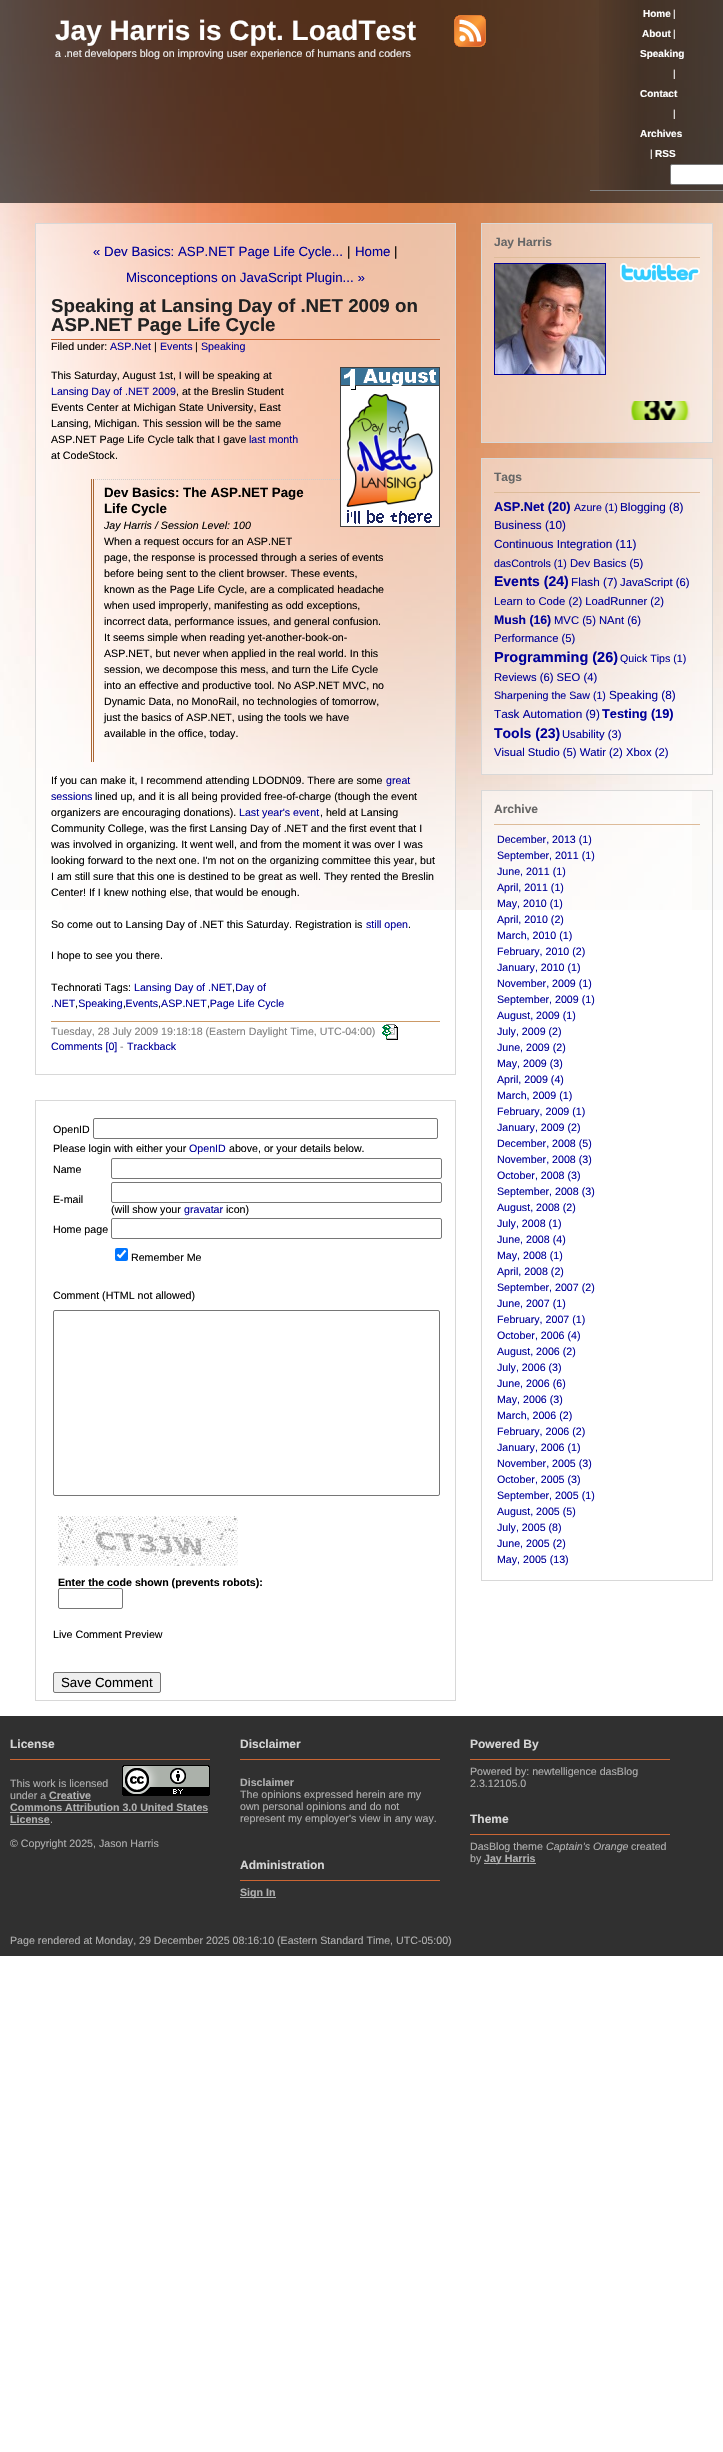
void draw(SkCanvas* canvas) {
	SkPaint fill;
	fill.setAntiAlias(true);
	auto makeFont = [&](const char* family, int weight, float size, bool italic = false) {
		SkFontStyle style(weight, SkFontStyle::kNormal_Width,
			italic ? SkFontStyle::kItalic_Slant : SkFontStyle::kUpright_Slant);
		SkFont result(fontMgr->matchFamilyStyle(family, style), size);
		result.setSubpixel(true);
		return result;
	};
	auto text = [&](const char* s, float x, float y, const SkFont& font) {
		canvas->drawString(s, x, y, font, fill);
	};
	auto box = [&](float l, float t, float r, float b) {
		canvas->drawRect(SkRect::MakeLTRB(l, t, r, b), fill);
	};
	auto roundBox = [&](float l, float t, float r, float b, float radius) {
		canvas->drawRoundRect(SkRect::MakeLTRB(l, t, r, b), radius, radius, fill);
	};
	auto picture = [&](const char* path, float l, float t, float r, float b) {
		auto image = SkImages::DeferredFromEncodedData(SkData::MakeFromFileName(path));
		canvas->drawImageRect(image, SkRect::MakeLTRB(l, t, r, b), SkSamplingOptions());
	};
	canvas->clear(0xFFFFFFFF);
	picture("image0.png", 0, 0, 723, 910);
	fill.setColor(0x9E000000);
	box(0, 0, 723, 203);
	picture("image1.png", 454, 15, 486, 47);
	picture("image2.png", 599, 0, 640, 190);
	fill.setColor(0xFF808080);
	box(590, 190, 723, 191);
	fill.setColor(0x40000000);
	box(640, 0, 723, 190);
	fill.setColor(0xFFFFFFFF);
	canvas->drawRoundRect(SkRect::MakeLTRB(670.5f, 164.5f, 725.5f, 184.5f), 1.5f, 1.5f, fill);
	fill.setStyle(SkPaint::kStroke_Style);
	fill.setStrokeWidth(1);
	fill.setColor(0xFF767676);
	canvas->drawRoundRect(SkRect::MakeLTRB(670.5f, 164.5f, 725.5f, 184.5f), 1.5f, 1.5f, fill);
	fill.setStyle(SkPaint::kFill_Style);
	fill.setColor(0x80FFFFFF);
	box(36, 224, 455, 910);
	fill.setStyle(SkPaint::kStroke_Style);
	fill.setColor(0xFFD8D8D8);
	canvas->drawRect(SkRect::MakeLTRB(35.5f, 223.5f, 455.5f, 1074.5f), fill);
	fill.setStyle(SkPaint::kFill_Style);
	fill.setColor(0xFFCC6633);
	box(51, 339, 440, 340);
	fill.setColor(0xFFCC9966);
	box(51, 1021, 440, 1022);
	fill.setStyle(SkPaint::kStroke_Style);
	fill.setColor(0xFFCCCCCC);
	fill.setPathEffect(SkDashPathEffect::Make({{1, 1}}, 0));
	canvas->drawPath(SkPathBuilder().moveTo(91, 479.5f).lineTo(400, 479.5f).detach(), fill);
	fill.setPathEffect(nullptr);
	picture("image3.png", 340, 367, 440, 527);
	fill.setStyle(SkPaint::kFill_Style);
	fill.setColor(0xFFAA6633);
	box(91, 479, 92, 762);
	box(93, 479, 94, 762);
	picture("image4.png", 382, 1024, 398, 1040);
	fill.setStyle(SkPaint::kStroke_Style);
	fill.setColor(0xFFD8D8D8);
	canvas->drawRect(SkRect::MakeLTRB(35.5f, 1100.5f, 455.5f, 1700.5f), fill);
	fill.setColor(0xFF767676);
	canvas->drawRoundRect(SkRect::MakeLTRB(93.5f, 1118.5f, 437.5f, 1138.5f), 1.5f, 1.5f, fill);
	canvas->drawRoundRect(SkRect::MakeLTRB(111.5f, 1158.5f, 441.5f, 1178.5f), 1.5f, 1.5f, fill);
	canvas->drawRoundRect(SkRect::MakeLTRB(111.5f, 1182.5f, 441.5f, 1202.5f), 1.5f, 1.5f, fill);
	canvas->drawRoundRect(SkRect::MakeLTRB(111.5f, 1218.5f, 441.5f, 1238.5f), 1.5f, 1.5f, fill);
	fill.setStyle(SkPaint::kFill_Style);
	fill.setColor(0xFF0075FF);
	roundBox(115, 1248, 128, 1261, 2);
	fill.setStyle(SkPaint::kStroke_Style);
	fill.setStrokeWidth(2.1f);
	fill.setColor(0xFFFFFFFF);
	canvas->drawPath(SkPathBuilder().moveTo(117.5f, 1254.5f).lineTo(120, 1257).lineTo(125.5f, 1250.5f).detach(), fill);
	fill.setStrokeWidth(1);
	fill.setColor(0xFF767676);
	canvas->drawRoundRect(SkRect::MakeLTRB(53.5f, 1310.5f, 439.5f, 1495.5f), 1.5f, 1.5f, fill);
	picture("image5.png", 58, 1516, 238, 1566);
	fill.setStyle(SkPaint::kFill_Style);
	fill.setColor(0xFFEFEFEF);
	canvas->drawRoundRect(SkRect::MakeLTRB(53.5f, 1672.5f, 160.5f, 1692.5f), 1.5f, 1.5f, fill);
	fill.setStyle(SkPaint::kStroke_Style);
	fill.setColor(0xFF767676);
	canvas->drawRoundRect(SkRect::MakeLTRB(53.5f, 1672.5f, 160.5f, 1692.5f), 1.5f, 1.5f, fill);
	fill.setStyle(SkPaint::kFill_Style);
	fill.setColor(0x80FFFFFF);
	canvas->drawRect(SkRect::MakeLTRB(481.5f, 223.5f, 712.5f, 442.5f), fill);
	fill.setStyle(SkPaint::kStroke_Style);
	fill.setColor(0xFFD8D8D8);
	canvas->drawRect(SkRect::MakeLTRB(481.5f, 223.5f, 712.5f, 442.5f), fill);
	fill.setStyle(SkPaint::kFill_Style);
	fill.setColor(0xFFDDBB99);
	box(494, 257, 700, 258);
	fill.setStyle(SkPaint::kStroke_Style);
	fill.setColor(0xFF000099);
	canvas->drawRect(SkRect::MakeLTRB(494.5f, 263.5f, 605.5f, 374.5f), fill);
	picture("image6.png", 495, 264, 605, 374);
	picture("image7.png", 620, 263, 700, 282);
	picture("image8.png", 630, 401, 691, 420);
	fill.setStyle(SkPaint::kFill_Style);
	fill.setColor(0x80FFFFFF);
	canvas->drawRect(SkRect::MakeLTRB(481.5f, 458.5f, 712.5f, 774.5f), fill);
	fill.setStyle(SkPaint::kStroke_Style);
	fill.setColor(0xFFD8D8D8);
	canvas->drawRect(SkRect::MakeLTRB(481.5f, 458.5f, 712.5f, 774.5f), fill);
	fill.setStyle(SkPaint::kFill_Style);
	fill.setColor(0xFFDDBB99);
	box(494, 492, 700, 493);
	fill.setColor(0x80FFFFFF);
	box(482, 791, 692, 910);
	fill.setStyle(SkPaint::kStroke_Style);
	fill.setColor(0xFFD8D8D8);
	canvas->drawRect(SkRect::MakeLTRB(481.5f, 790.5f, 712.5f, 1580.5f), fill);
	fill.setStyle(SkPaint::kFill_Style);
	fill.setColor(0xFFDDBB99);
	box(494, 824, 700, 825);
	fill.setColor(0xFF303030);
	box(0, 1716, 723, 1956);
	fill.setColor(0xFFCC6633);
	box(10, 1759, 210, 1760);
	picture("image9.png", 122, 1765, 210, 1796);
	fill.setColor(0xFFB0B0B0);
	box(49, 1800, 91, 1801);
	box(10, 1812, 208, 1813);
	box(10, 1824, 50, 1825);
	fill.setColor(0xFFCC6633);
	box(240, 1759, 440, 1760);
	box(240, 1880, 440, 1881);
	fill.setColor(0xFFB0B0B0);
	box(240, 1897, 276, 1898);
	fill.setColor(0xFFCC6633);
	box(470, 1759, 670, 1760);
	box(470, 1834, 670, 1835);
	fill.setColor(0xFFB0B0B0);
	box(484, 1863, 536, 1864);
	auto font1 = makeFont("Liberation Sans", 700, 28);
	fill.setColor(0xFFFFFFFF);
	text("Jay Harris is Cpt. LoadTest", 55, 40, font1);
	auto font2 = makeFont("Liberation Sans", 400, 10.65f);
	fill.setColor(0xFFEEEEEE);
	text("a .net developers blog on improving user experience of humans and coders", 55, 57, font2);
	auto font3 = makeFont("Liberation Sans", 700, 10);
	fill.setColor(0xFFFFFFFF);
	text("Home", 643, 17, font3);
	auto font4 = makeFont("Liberation Sans", 400, 10);
	text("|", 673, 17, font4);
	text("About", 642, 37, font3);
	text("|", 673, 37, font4);
	text("Speaking", 640, 57, font3);
	text("|", 673, 77, font4);
	text("Contact", 640, 97, font3);
	text("|", 673, 117, font4);
	text("Archives", 640, 137, font3);
	text("|", 650, 157, font4);
	text("RSS", 655, 157, font3);
	auto font5 = makeFont("Liberation Sans", 400, 13.3f);
	fill.setColor(0xFF000099);
	text("« Dev Basics: ASP.NET Page Life Cycle...", 93, 256, font5);
	fill.setColor(0xFF000000);
	text("|", 347, 256, font5);
	fill.setColor(0xFF000099);
	text("Home", 355, 256, font5);
	fill.setColor(0xFF000000);
	text("|", 394, 256, font5);
	fill.setColor(0xFF000099);
	text("Misconceptions on JavaScript Plugin... »", 126, 282, font5);
	auto font6 = makeFont("Liberation Sans", 700, 18.7f);
	fill.setColor(0xFF222222);
	text("Speaking at Lansing Day of .NET 2009 on", 51, 312, font6);
	text("ASP.NET Page Life Cycle", 51, 331, font6);
	fill.setColor(0xFF000000);
	text("Filed under:", 51, 350, font2);
	fill.setColor(0xFF000099);
	text("ASP.Net", 110, 350, font2);
	fill.setColor(0xFF000000);
	text("|", 154, 350, font2);
	fill.setColor(0xFF000099);
	text("Events", 160, 350, font2);
	fill.setColor(0xFF000000);
	text("|", 195, 350, font2);
	fill.setColor(0xFF000099);
	text("Speaking", 201, 350, font2);
	fill.setColor(0xFF000000);
	text("This Saturday, August 1st, I will be speaking at", 51, 379, font2);
	fill.setColor(0xFF000099);
	text("Lansing Day of .NET 2009", 51, 395, font2);
	fill.setColor(0xFF000000);
	text(", at the Breslin Student", 176, 395, font2);
	text("Events Center at Michigan State University, East", 51, 411, font2);
	text("Lansing, Michigan. This session will be the same", 51, 427, font2);
	text("ASP.NET Page Life Cycle talk that I gave", 51, 443, font2);
	fill.setColor(0xFF000099);
	text("last month", 249, 443, font2);
	fill.setColor(0xFF000000);
	text("at CodeStock.", 51, 459, font2);
	auto font7 = makeFont("Liberation Sans", 700, 13.3f);
	text("Dev Basics: The ASP.NET Page", 104, 497, font7);
	text("Life Cycle", 104, 513, font7);
	auto font8 = makeFont("Liberation Sans", 400, 10.65f, true);
	text("Jay Harris / Session Level: 100", 104, 529, font8);
	text("When a request occurs for an ASP.NET", 104, 545, font2);
	text("page, the response is processed through a series of events", 104, 561, font2);
	text("before being sent to the client browser. These events,", 104, 577, font2);
	text("known as the Page Life Cycle, are a complicated headache", 104, 593, font2);
	text("when used improperly, manifesting as odd exceptions,", 104, 609, font2);
	text("incorrect data, performance issues, and general confusion.", 104, 625, font2);
	text("It seems simple when reading yet-another-book-on-", 104, 641, font2);
	text("ASP.NET, but never when applied in the real world. In this", 104, 657, font2);
	text("session, we decompose this mess, and turn the Life Cycle", 104, 673, font2);
	text("into an effective and productive tool. No ASP.NET MVC, no", 104, 689, font2);
	text("Dynamic Data, no MonoRail, no technologies of tomorrow,", 104, 705, font2);
	text("just the basics of ASP.NET, using the tools we have", 104, 721, font2);
	text("available in the office, today.", 104, 737, font2);
	text("If you can make it, I recommend attending LDODN09. There are some", 51, 784, font2);
	fill.setColor(0xFF000099);
	text("great", 386, 784, font2);
	text("sessions", 51, 800, font2);
	fill.setColor(0xFF000000);
	text("lined up, and it is all being provided free-of-charge (though the event", 95, 800, font2);
	text("organizers are encouraging donations).", 51, 816, font2);
	fill.setColor(0xFF000099);
	text("Last year's event", 239, 816, font2);
	fill.setColor(0xFF000000);
	text(", held at Lansing", 320, 816, font2);
	text("Community College, was the first Lansing Day of .NET and the first event that I", 51, 832, font2);
	text("was involved in organizing. It went well, and from the moment it was over I was", 51, 848, font2);
	text("looking forward to the next one. I'm not on the organizing committee this year, but", 51, 864, font2);
	text("I am still sure that this one is destined to be great as well. They rented the Breslin", 51, 880, font2);
	text("Center! If I knew nothing else, that would be enough.", 51, 896, font2);
	text("So come out to Lansing Day of .NET this Saturday. Registration is", 51, 928, font2);
	fill.setColor(0xFF000099);
	text("still open", 366, 928, font2);
	fill.setColor(0xFF000000);
	text(".", 408, 928, font2);
	text("I hope to see you there.", 51, 959, font2);
	text("Technorati Tags:", 51, 991, font2);
	fill.setColor(0xFF000099);
	text("Lansing Day of .NET Day of", 134, 991, font2);
	fill.setColor(0xFF000000);
	text(",", 232, 991, font2);
	fill.setColor(0xFF000099);
	text(".NET Speaking Events ASP.NET Page Life Cycle", 51, 1007, font2);
	fill.setColor(0xFF000000);
	text(",", 75, 1007, font2);
	text(",", 123, 1007, font2);
	text(",", 158, 1007, font2);
	text(",", 207, 1007, font2);
	fill.setColor(0xFF808080);
	text("Tuesday, 28 July 2009 19:18:18 (Eastern Daylight Time, UTC-04:00)", 51, 1035, font2);
	fill.setColor(0xFF000099);
	text("Comments [0]", 51, 1050, font2);
	fill.setColor(0xFF808080);
	text("-", 120, 1050, font2);
	fill.setColor(0xFF000099);
	text("Trackback", 127, 1050, font2);
	fill.setColor(0xFF000000);
	text("OpenID", 53, 1133, font2);
	text("Please login with either your", 53, 1152, font2);
	fill.setColor(0xFF000099);
	text("OpenID", 189, 1152, font2);
	fill.setColor(0xFF000000);
	text("above, or your details below.", 229, 1152, font2);
	text("Name", 53, 1173, font2);
	text("E-mail", 53, 1203, font2);
	text("(will show your", 111, 1213, font2);
	fill.setColor(0xFF000099);
	text("gravatar", 184, 1213, font2);
	fill.setColor(0xFF000000);
	text("icon)", 226, 1213, font2);
	text("Home page", 53, 1233, font2);
	text("Remember Me", 131, 1261, font2);
	text("Comment (HTML not allowed)", 53, 1299, font2);
	auto font9 = makeFont("Liberation Sans", 700, 10.65f);
	text("Enter the code shown (prevents robots):", 58, 1586, font9);
	fill.setStyle(SkPaint::kStroke_Style);
	fill.setColor(0xFF767676);
	canvas->drawRoundRect(SkRect::MakeLTRB(58.5f, 1588.5f, 122.5f, 1608.5f), 1.5f, 1.5f, fill);
	fill.setStyle(SkPaint::kFill_Style);
	fill.setColor(0xFF000000);
	text("Live Comment Preview", 53, 1638, font2);
	text("Save Comment", 61, 1687, font5);
	auto font10 = makeFont("Liberation Sans", 700, 12);
	fill.setColor(0xFF666666);
	text("Jay Harris", 494, 246, font10);
	text("Tags", 494, 481, font10);
	auto font11 = makeFont("Liberation Sans", 700, 12.75f);
	fill.setColor(0xFF000099);
	text("ASP.Net (20)", 494, 511, font11);
	text("Azure (1)", 574, 511, font2);
	auto font12 = makeFont("Liberation Sans", 400, 11.75f);
	text("Blogging (8)", 620, 511, font12);
	text("Business (10)", 494, 529, font12);
	text("Continuous Integration (11)", 494, 548, font12);
	text("dasControls (1)", 494, 567, font2);
	auto font13 = makeFont("Liberation Sans", 400, 11.25f);
	text("Dev Basics (5)", 570, 567, font13);
	auto font14 = makeFont("Liberation Sans", 700, 14);
	text("Events (24)", 494, 586, font14);
	text("Flash (7)", 571, 586, font12);
	text("JavaScript (6)", 620, 586, font13);
	text("Learn to Code (2) LoadRunner (2)", 494, 605, font13);
	auto font15 = makeFont("Liberation Sans", 700, 12.25f);
	text("Mush (16)", 494, 624, font15);
	text("MVC (5) NAnt (6)", 554, 624, font13);
	text("Performance (5)", 494, 642, font13);
	auto font16 = makeFont("Liberation Sans", 700, 14.5f);
	text("Programming (26)", 494, 662, font16);
	text("Quick Tips (1)", 620, 662, font2);
	text("Reviews (6) SEO (4)", 494, 681, font13);
	text("Sharpening the Saw (1)", 494, 699, font2);
	text("Speaking (8)", 609, 699, font12);
	text("Task Automation (9)", 494, 718, font12);
	text("Testing (19)", 602, 718, font11);
	text("Tools (23)", 494, 738, font14);
	text("Usability (3)", 562, 738, font13);
	text("Visual Studio (5) Watir (2) Xbox (2)", 494, 756, font13);
	fill.setColor(0xFF666666);
	text("Archive", 494, 813, font10);
	fill.setColor(0xFF000099);
	text("December, 2013 (1)", 497, 843, font2);
	text("September, 2011 (1)", 497, 859, font2);
	text("June, 2011 (1)", 497, 875, font2);
	text("April, 2011 (1)", 497, 891, font2);
	text("May, 2010 (1)", 497, 907, font2);
	text("April, 2010 (2)", 497, 923, font2);
	text("March, 2010 (1)", 497, 939, font2);
	text("February, 2010 (2)", 497, 955, font2);
	text("January, 2010 (1)", 497, 971, font2);
	text("November, 2009 (1)", 497, 987, font2);
	text("September, 2009 (1)", 497, 1003, font2);
	text("August, 2009 (1)", 497, 1019, font2);
	text("July, 2009 (2)", 497, 1035, font2);
	text("June, 2009 (2)", 497, 1051, font2);
	text("May, 2009 (3)", 497, 1067, font2);
	text("April, 2009 (4)", 497, 1083, font2);
	text("March, 2009 (1)", 497, 1099, font2);
	text("February, 2009 (1)", 497, 1115, font2);
	text("January, 2009 (2)", 497, 1131, font2);
	text("December, 2008 (5)", 497, 1147, font2);
	text("November, 2008 (3)", 497, 1163, font2);
	text("October, 2008 (3)", 497, 1179, font2);
	text("September, 2008 (3)", 497, 1195, font2);
	text("August, 2008 (2)", 497, 1211, font2);
	text("July, 2008 (1)", 497, 1227, font2);
	text("June, 2008 (4)", 497, 1243, font2);
	text("May, 2008 (1)", 497, 1259, font2);
	text("April, 2008 (2)", 497, 1275, font2);
	text("September, 2007 (2)", 497, 1291, font2);
	text("June, 2007 (1)", 497, 1307, font2);
	text("February, 2007 (1)", 497, 1323, font2);
	text("October, 2006 (4)", 497, 1339, font2);
	text("August, 2006 (2)", 497, 1355, font2);
	text("July, 2006 (3)", 497, 1371, font2);
	text("June, 2006 (6)", 497, 1387, font2);
	text("May, 2006 (3)", 497, 1403, font2);
	text("March, 2006 (2)", 497, 1419, font2);
	text("February, 2006 (2)", 497, 1435, font2);
	text("January, 2006 (1)", 497, 1451, font2);
	text("November, 2005 (3)", 497, 1467, font2);
	text("October, 2005 (3)", 497, 1483, font2);
	text("September, 2005 (1)", 497, 1499, font2);
	text("August, 2005 (5)", 497, 1515, font2);
	text("July, 2005 (8)", 497, 1531, font2);
	text("June, 2005 (2)", 497, 1547, font2);
	text("May, 2005 (13)", 497, 1563, font2);
	fill.setColor(0xFFD5D5D5);
	text("License", 10, 1748, font10);
	fill.setColor(0xFFB0B0B0);
	text("This work is licensed", 10, 1787, font2);
	text("under a", 10, 1799, font2);
	text("Creative", 49, 1799, font9);
	text("Commons Attribution 3.0 United States", 10, 1811, font9);
	text("License", 10, 1823, font9);
	text(".", 50, 1823, font2);
	text("© Copyright 2025, Jason Harris", 10, 1847, font2);
	fill.setColor(0xFFD5D5D5);
	text("Disclaimer", 240, 1748, font10);
	fill.setColor(0xFFB0B0B0);
	text("Disclaimer", 240, 1786, font9);
	text("The opinions expressed herein are my", 240, 1798, font2);
	text("own personal opinions and do not", 240, 1810, font2);
	text("represent my employer's view in any way.", 240, 1822, font2);
	fill.setColor(0xFFD5D5D5);
	text("Administration", 240, 1869, font10);
	fill.setColor(0xFFB0B0B0);
	text("Sign In", 240, 1896, font9);
	fill.setColor(0xFFD5D5D5);
	text("Powered By", 470, 1748, font10);
	fill.setColor(0xFFB0B0B0);
	text("Powered by: newtelligence dasBlog", 470, 1775, font2);
	text("2.3.12105.0", 470, 1787, font2);
	fill.setColor(0xFFD5D5D5);
	text("Theme", 470, 1823, font10);
	fill.setColor(0xFFB0B0B0);
	text("DasBlog theme", 470, 1850, font2);
	text("Captain's Orange", 546, 1850, font8);
	text("created", 631, 1850, font2);
	text("by", 470, 1862, font2);
	text("Jay Harris", 484, 1862, font9);
	text("Page rendered at Monday, 29 December 2025 08:16:10 (Eastern Standard Time, UTC-05:00)", 10, 1944, font2);
}
